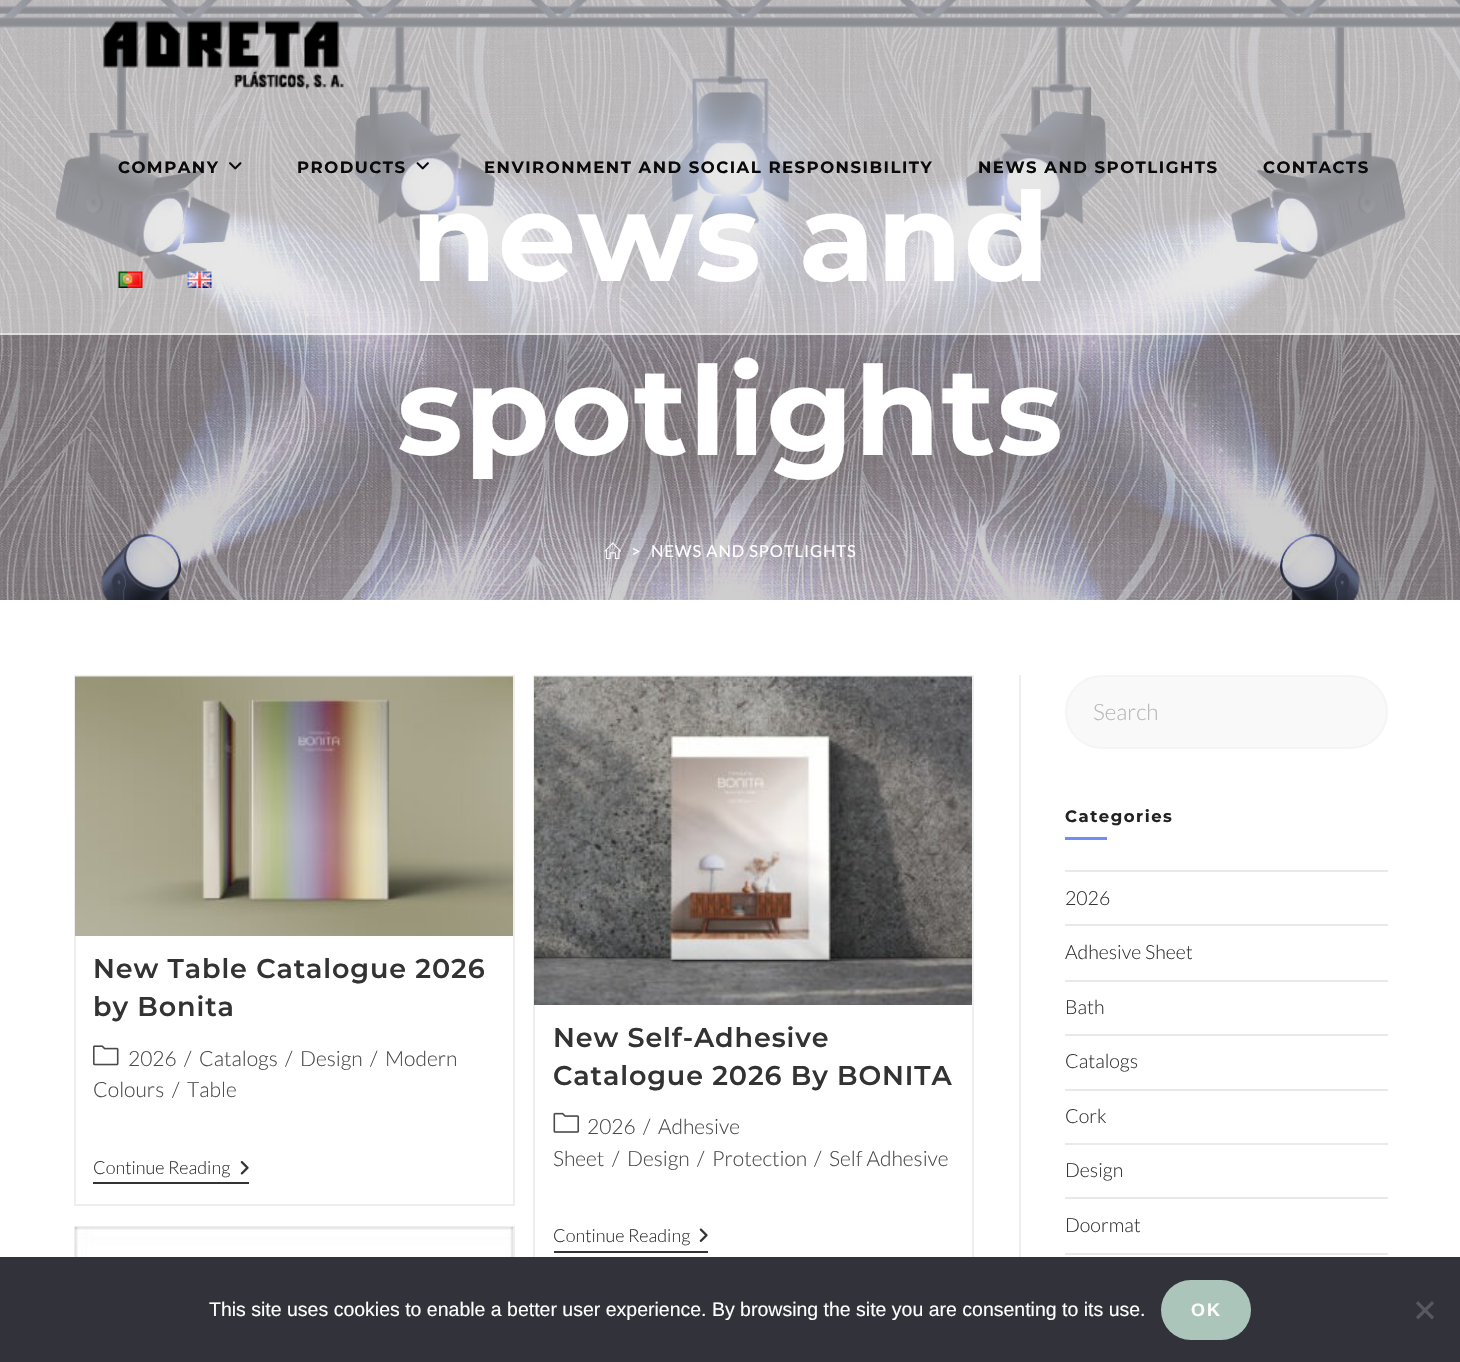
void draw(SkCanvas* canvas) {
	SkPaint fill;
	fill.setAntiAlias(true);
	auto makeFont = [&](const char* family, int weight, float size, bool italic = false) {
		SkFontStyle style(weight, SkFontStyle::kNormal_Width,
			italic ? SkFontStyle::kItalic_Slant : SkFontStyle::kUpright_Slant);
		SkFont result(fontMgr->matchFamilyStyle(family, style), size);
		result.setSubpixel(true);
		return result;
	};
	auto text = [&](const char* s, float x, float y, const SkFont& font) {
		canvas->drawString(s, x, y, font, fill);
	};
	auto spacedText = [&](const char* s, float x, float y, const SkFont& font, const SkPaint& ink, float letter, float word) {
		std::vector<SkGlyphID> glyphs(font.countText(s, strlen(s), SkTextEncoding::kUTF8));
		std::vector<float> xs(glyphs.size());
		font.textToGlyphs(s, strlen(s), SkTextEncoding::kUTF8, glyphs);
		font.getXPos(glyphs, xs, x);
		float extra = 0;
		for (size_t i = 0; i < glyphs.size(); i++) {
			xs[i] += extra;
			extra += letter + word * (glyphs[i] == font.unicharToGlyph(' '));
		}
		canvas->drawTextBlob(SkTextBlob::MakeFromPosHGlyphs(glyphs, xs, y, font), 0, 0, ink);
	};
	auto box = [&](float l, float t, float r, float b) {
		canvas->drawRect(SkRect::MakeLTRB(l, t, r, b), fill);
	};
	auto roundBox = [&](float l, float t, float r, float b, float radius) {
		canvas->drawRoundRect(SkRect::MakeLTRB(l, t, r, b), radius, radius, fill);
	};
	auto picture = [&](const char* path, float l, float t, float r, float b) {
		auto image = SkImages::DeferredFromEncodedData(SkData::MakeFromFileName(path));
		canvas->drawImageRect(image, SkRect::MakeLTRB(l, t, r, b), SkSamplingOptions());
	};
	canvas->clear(0xFFFFFFFF);
	picture("image5.png", 0, 0, 1460, 600);
	picture("image6.png", 604, 542, 621, 559);
	fill.setColor(0xFFEEEEEE);
	box(1019, 675, 1021, 1257);
	fill.setStyle(SkPaint::kStroke_Style);
	fill.setStrokeWidth(2);
	canvas->drawRect(SkRect::MakeLTRB(75, 676, 514, 1205), fill);
	picture("image7.png", 75, 676, 513, 936);
	picture("image8.png", 93, 1045, 119, 1066);
	fill.setStyle(SkPaint::kFill_Style);
	fill.setColor(0xFF333333);
	box(93, 1182, 249, 1184);
	picture("image9.png", 240, 1161, 249, 1175);
	fill.setStyle(SkPaint::kStroke_Style);
	fill.setColor(0xFFEEEEEE);
	canvas->drawRect(SkRect::MakeLTRB(534, 676, 973, 1274), fill);
	picture("image10.png", 534, 676, 972, 1005);
	picture("image11.png", 553, 1112, 579, 1133);
	fill.setStyle(SkPaint::kFill_Style);
	fill.setColor(0xFF333333);
	box(554, 1251, 708, 1253);
	picture("image12.png", 699, 1228, 708, 1242);
	fill.setStyle(SkPaint::kStroke_Style);
	fill.setColor(0xFFEEEEEE);
	canvas->drawRect(SkRect::MakeLTRB(75, 1227, 514, 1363), fill);
	picture("image13.png", 75, 1227, 513, 1257);
	fill.setStyle(SkPaint::kFill_Style);
	fill.setColor(0xFFF9F9F9);
	canvas->drawRoundRect(SkRect::MakeLTRB(1066, 676, 1387, 748), 36, 36, fill);
	fill.setStyle(SkPaint::kStroke_Style);
	fill.setColor(0xFFF5F5F5);
	canvas->drawRoundRect(SkRect::MakeLTRB(1066, 676, 1387, 748), 36, 36, fill);
	fill.setStyle(SkPaint::kFill_Style);
	fill.setColor(0xFF6E8FEF);
	box(1065, 837, 1107, 840);
	fill.setColor(0xFFE9E9E9);
	box(1065, 870, 1388, 872);
	box(1065, 924, 1388, 926);
	box(1065, 980, 1388, 982);
	box(1065, 1034, 1388, 1036);
	box(1065, 1089, 1388, 1091);
	box(1065, 1143, 1388, 1145);
	box(1065, 1197, 1388, 1199);
	box(1065, 1253, 1388, 1255);
	fill.setColor(0xFF32323A);
	box(0, 1257, 1460, 1362);
	fill.setColor(0xFFACC5BB);
	roundBox(1161, 1280, 1251, 1340, 30);
	fill.setColor(0xFF59595D);
	canvas->drawPath(SkPathBuilder().moveTo(1432, 1301).lineTo(1434, 1303.5f).lineTo(1418, 1319.5f).lineTo(1416, 1317).close().detach(), fill);
	canvas->drawPath(SkPathBuilder().moveTo(1416, 1303.5f).lineTo(1418, 1301).lineTo(1434, 1317).lineTo(1432, 1319.5f).close().detach(), fill);
	auto font1 = makeFont("Montserrat", 700, 123.75f);
	fill.setColor(0xFFFFFFFF);
	spacedText("news and", 411, 281, font1, fill, 1.5f, 0);
	fill.setColor(0x80FFFFFF);
	box(0, 0, 1460, 335);
	picture("image4.png", 187, 271, 212, 288);
	picture("image3.png", 118, 271, 143, 288);
	auto font2 = makeFont("Montserrat", 700, 16.5f);
	fill.setColor(0xFF0A0A0A);
	spacedText("CONTACTS", 1263, 173, font2, fill, 1.5f, 0);
	spacedText("NEWS AND SPOTLIGHTS", 978, 173, font2, fill, 1.5f, 0);
	spacedText("ENVIRONMENT AND SOCIAL RESPONSIBILITY", 484, 173, font2, fill, 1.5f, 0);
	picture("image2.png", 416, 162, 429, 170);
	spacedText("PRODUCTS", 297, 173, font2, fill, 1.5f, 0);
	picture("image1.png", 229, 162, 242, 170);
	spacedText("COMPANY", 118, 173, font2, fill, 1.5f, 0);
	picture("image0.png", 103, 20, 344, 90);
	fill.setColor(0x80FFFFFF);
	box(0, 333, 1460, 335);
	fill.setColor(0xFFFFFFFF);
	spacedText("spotlights", 397, 455, font1, fill, 1.5f, 0);
	auto font3 = makeFont("Lato", 400, 16.5f);
	spacedText(">", 631, 557, font3, fill, 0.9f, 0);
	spacedText("NEWS AND SPOTLIGHTS", 651, 557, font3, fill, 0.9f, 0);
	auto font4 = makeFont("Montserrat", 600, 27);
	fill.setColor(0xFF333333);
	spacedText("New Table Catalogue 2026", 93, 978, font4, fill, 0.9f, 0);
	spacedText("by Bonita", 93, 1016, font4, fill, 0.9f, 0);
	auto font5 = makeFont("Lato", 300, 21);
	fill.setColor(0xFF4A4A4A);
	text("2026", 128, 1066, font5);
	text("/", 184, 1066, font5);
	text("Catalogs", 199, 1066, font5);
	text("/", 285, 1066, font5);
	text("Design", 300, 1066, font5);
	text("/", 370, 1066, font5);
	text("Modern", 385, 1066, font5);
	text("Colours", 93, 1097, font5);
	text("/", 172, 1097, font5);
	text("Table", 187, 1097, font5);
	auto font6 = makeFont("Lato", 300, 18);
	fill.setColor(0xFF333333);
	text("Continue Reading", 93, 1174, font6);
	spacedText("New Self-Adhesive", 553, 1047, font4, fill, 0.9f, 0);
	spacedText("Catalogue 2026 By BONITA", 553, 1085, font4, fill, 0.9f, 0);
	fill.setColor(0xFF4A4A4A);
	text("2026", 587, 1134, font5);
	text("/", 643, 1134, font5);
	text("Adhesive", 658, 1134, font5);
	text("Sheet", 553, 1166, font5);
	text("/", 612, 1166, font5);
	text("Design", 627, 1166, font5);
	text("/", 697, 1166, font5);
	text("Protection", 712, 1166, font5);
	text("/", 814, 1166, font5);
	text("Self Adhesive", 829, 1166, font5);
	fill.setColor(0xFF333333);
	text("Continue Reading", 553, 1242, font6);
	auto font7 = makeFont("Lato", 300, 22.5f);
	fill.setColor(0xFFB7B7B7);
	text("Search", 1093, 720, font7);
	fill.setColor(0xFF222222);
	spacedText("Categories", 1065, 822, font2, fill, 1.5f, 0);
	auto font8 = makeFont("Lato", 300, 19.5f);
	fill.setColor(0xFF333333);
	text("2026", 1065, 905, font8);
	text("Adhesive Sheet", 1065, 959, font8);
	text("Bath", 1065, 1014, font8);
	text("Catalogs", 1065, 1068, font8);
	text("Cork", 1065, 1123, font8);
	text("Design", 1065, 1177, font8);
	text("Doormat", 1065, 1232, font8);
	auto font9 = makeFont("Liberation Sans", 400, 19.5f);
	fill.setColor(0xFFFFFFFF);
	text("This site uses cookies to enable a better user experience. By browsing the site you are consenting to its use.", 209, 1316, font9);
	auto font10 = makeFont("Liberation Sans", 700, 18);
	spacedText("OK", 1191, 1316, font10, fill, 2, 0);
}
